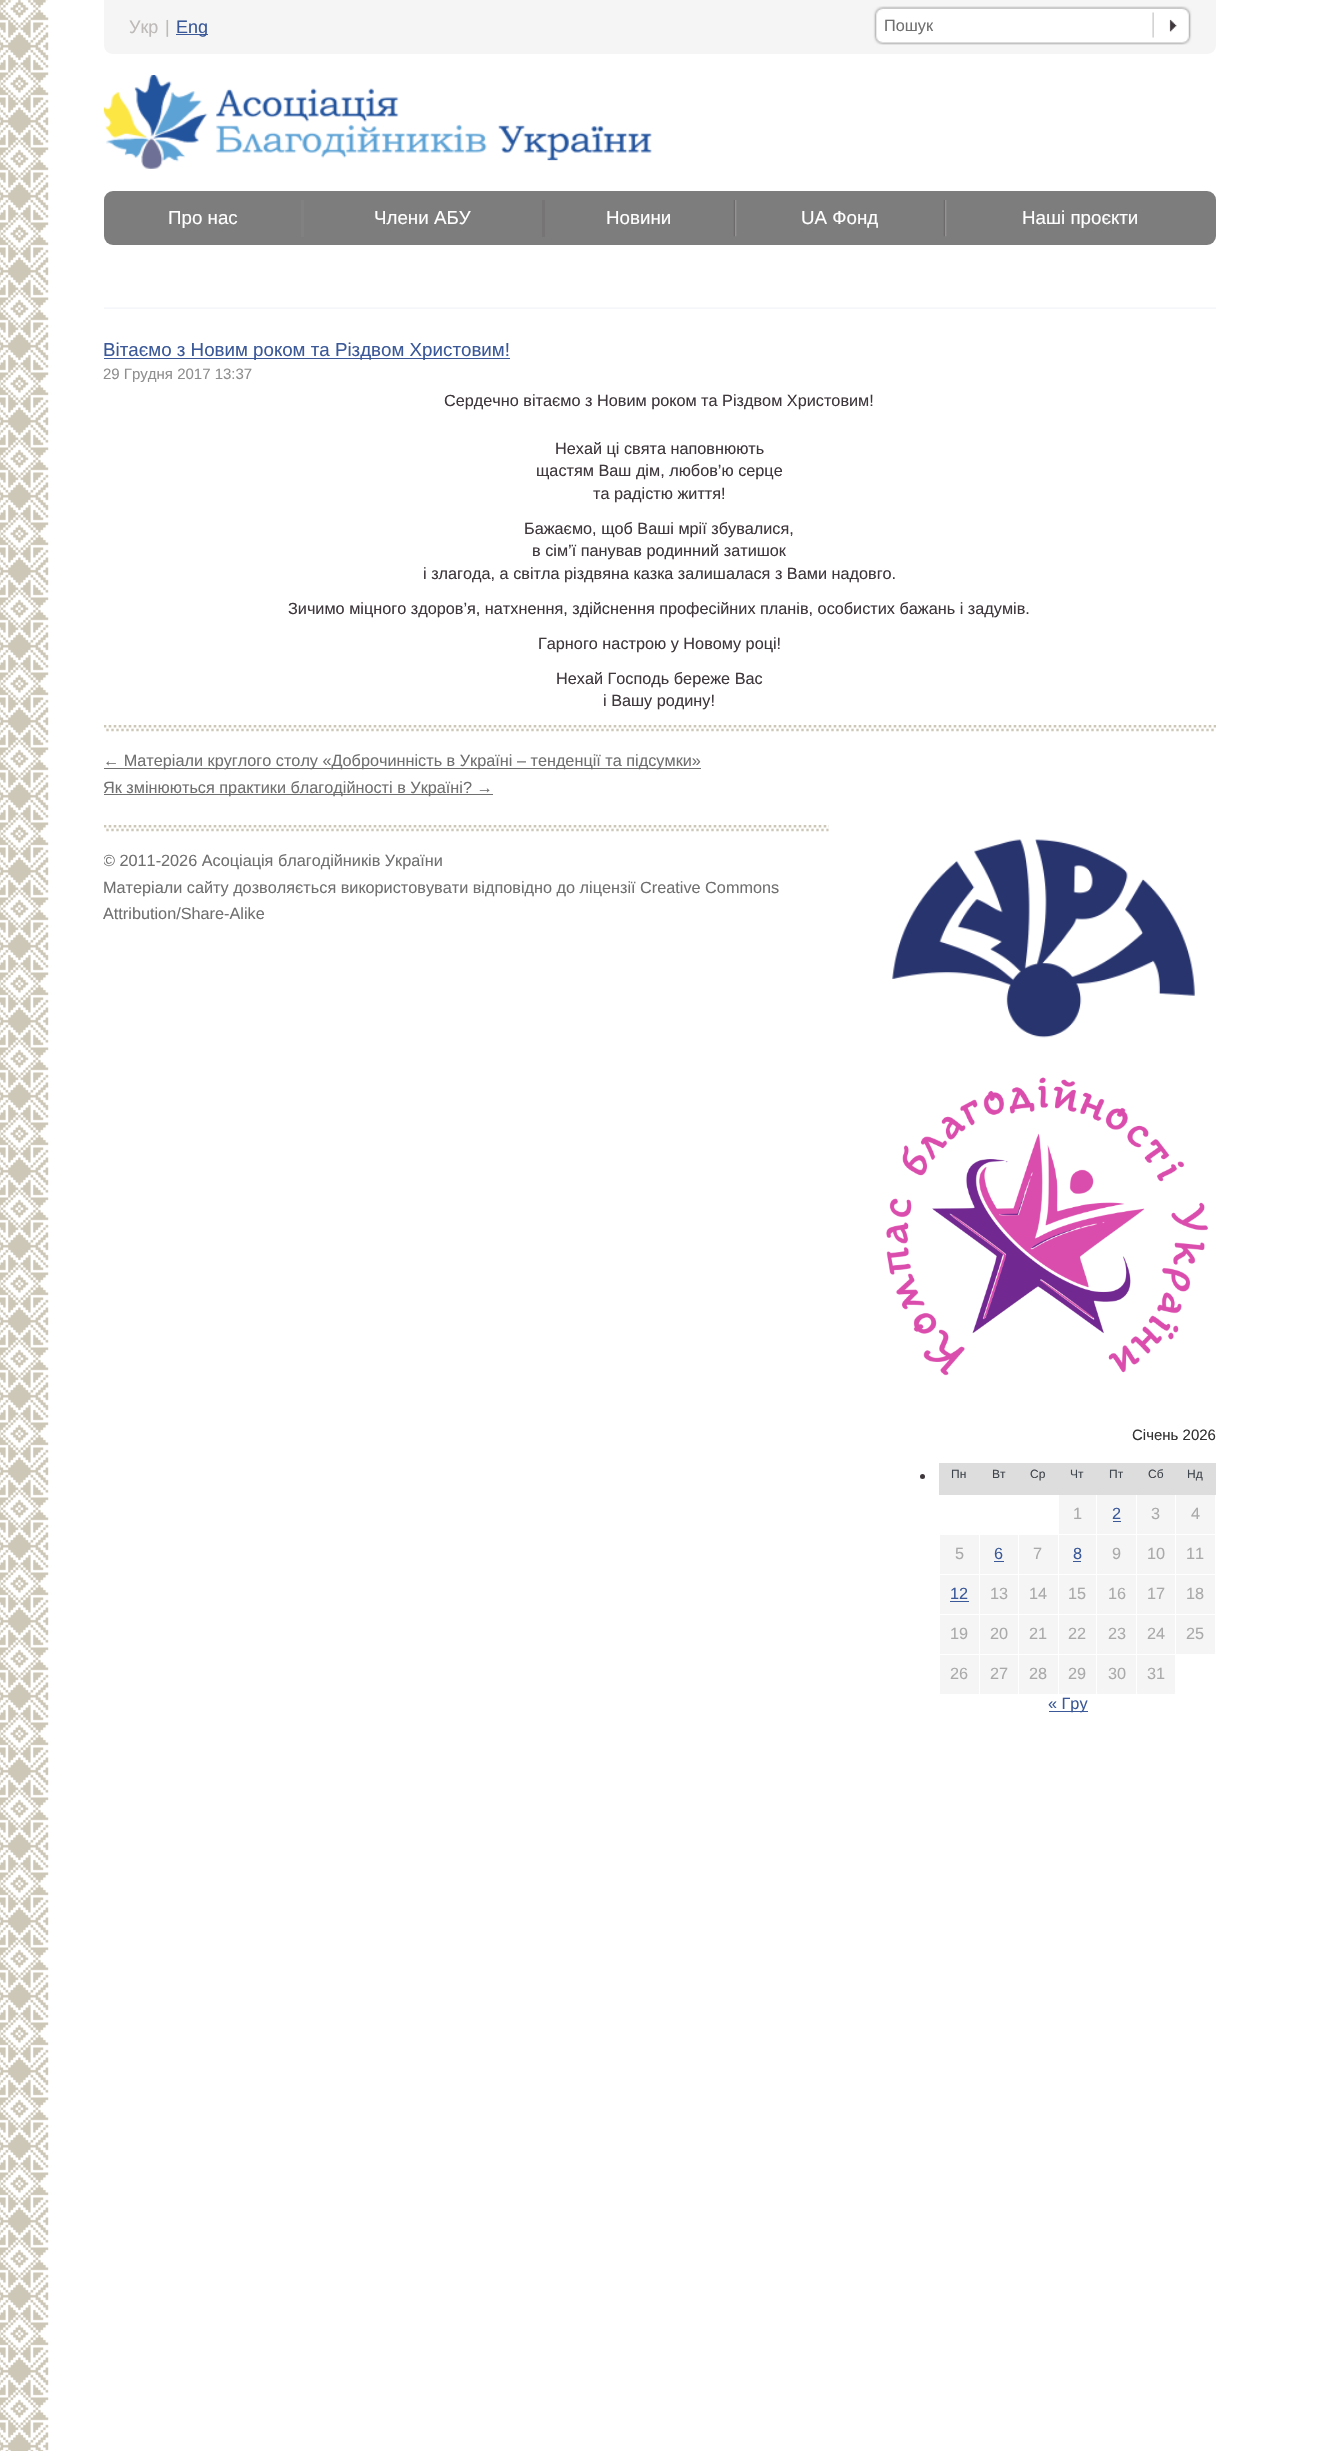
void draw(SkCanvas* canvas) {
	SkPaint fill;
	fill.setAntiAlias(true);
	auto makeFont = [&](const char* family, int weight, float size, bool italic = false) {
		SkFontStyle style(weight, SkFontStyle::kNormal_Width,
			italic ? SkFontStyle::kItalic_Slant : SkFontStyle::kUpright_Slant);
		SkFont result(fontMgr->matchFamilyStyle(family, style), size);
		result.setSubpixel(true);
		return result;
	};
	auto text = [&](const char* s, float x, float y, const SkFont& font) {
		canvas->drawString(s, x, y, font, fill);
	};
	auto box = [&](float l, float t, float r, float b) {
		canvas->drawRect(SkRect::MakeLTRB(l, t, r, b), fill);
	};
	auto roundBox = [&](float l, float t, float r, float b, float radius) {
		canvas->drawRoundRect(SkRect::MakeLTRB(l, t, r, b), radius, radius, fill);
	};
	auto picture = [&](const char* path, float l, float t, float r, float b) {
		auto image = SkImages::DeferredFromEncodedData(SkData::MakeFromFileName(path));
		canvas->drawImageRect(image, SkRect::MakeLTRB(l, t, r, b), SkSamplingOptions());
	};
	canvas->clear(0xFFFFFFFF);
	picture("image0.png", 0, 0, 49, 2451);
	fill.setColor(0xFFF5F5F5);
	canvas->drawPath(SkPathBuilder().moveTo(104, 0).lineTo(1216, 0).lineTo(1216, 45).cubicTo(1216, 50, 1212, 54, 1207, 54).lineTo(113, 54).cubicTo(108, 54, 104, 50, 104, 45).close().detach(), fill);
	fill.setColor(0xFF3B5998);
	box(176, 34, 208, 35);
	picture("image1.png", 873, 6, 1192, 45);
	picture("image2.png", 103, 75, 652, 169);
	fill.setColor(0xFF7D7D7D);
	roundBox(104, 191, 1216, 245, 9);
	fill.setColor(0xFF828181);
	box(301, 200, 304, 237);
	fill.setColor(0xFF767475);
	box(542, 200, 545, 237);
	picture("image3.png", 733, 200, 737, 237);
	picture("image3.png", 943, 200, 947, 237);
	picture("image4.png", 104, 307, 1216, 309);
	fill.setColor(0xFF3B5998);
	box(104, 358, 510, 359);
	picture("image5.png", 104, 725, 1216, 732);
	fill.setColor(0xFF707070);
	box(104, 768, 701, 769);
	box(104, 794, 493, 795);
	picture("image6.png", 104, 825, 829, 832);
	picture("image7.png", 892, 839, 1195, 1038);
	picture("image8.png", 886, 1077, 1208, 1376);
	fill.setColor(0xFF3E373C);
	canvas->drawCircle(922.5f, 1476.5f, 2.5f, fill);
	fill.setColor(0xFFDDDDDD);
	box(940, 1464, 1215, 1494);
	box(939, 1463, 1216, 1464);
	box(1215, 1463, 1216, 1495);
	fill.setColor(0xFFF5F5F5);
	box(1059, 1495, 1136, 1534);
	box(1059, 1535, 1136, 1574);
	box(1059, 1575, 1136, 1614);
	box(1059, 1615, 1136, 1654);
	box(1059, 1655, 1136, 1694);
	fill.setColor(0xFFFFFFFF);
	box(1096, 1494, 1097, 1695);
	fill.setColor(0xFFDDDDDD);
	box(939, 1494, 1216, 1495);
	box(939, 1463, 940, 1495);
	fill.setColor(0xFF3B5998);
	box(1113, 1521, 1121, 1522);
	fill.setColor(0xFFF5F5F5);
	box(1137, 1495, 1175, 1534);
	box(1176, 1495, 1215, 1534);
	box(940, 1535, 979, 1574);
	box(980, 1535, 1018, 1574);
	fill.setColor(0xFF3B5998);
	box(994, 1561, 1004, 1562);
	fill.setColor(0xFFF5F5F5);
	box(1019, 1535, 1058, 1574);
	fill.setColor(0xFF3B5998);
	box(1073, 1561, 1081, 1562);
	fill.setColor(0xFFF5F5F5);
	box(1137, 1535, 1175, 1574);
	box(1176, 1535, 1215, 1574);
	box(940, 1575, 979, 1614);
	fill.setColor(0xFF3B5998);
	box(950, 1601, 969, 1602);
	fill.setColor(0xFFF5F5F5);
	box(980, 1575, 1018, 1614);
	box(1019, 1575, 1058, 1614);
	box(1137, 1575, 1175, 1614);
	box(1176, 1575, 1215, 1614);
	box(940, 1615, 979, 1654);
	box(980, 1615, 1018, 1654);
	box(1019, 1615, 1058, 1654);
	box(1137, 1615, 1175, 1654);
	box(1176, 1615, 1215, 1654);
	box(940, 1655, 979, 1694);
	box(980, 1655, 1018, 1694);
	box(1019, 1655, 1058, 1694);
	box(1137, 1655, 1175, 1694);
	fill.setColor(0xFF3B5998);
	box(1049, 1711, 1088, 1712);
	auto font1 = makeFont("Liberation Sans", 400, 18);
	fill.setColor(0xFFBDBAB8);
	text("Укр", 129, 33, font1);
	text("|", 165, 33, font1);
	fill.setColor(0xFF3B5998);
	text("Eng", 176, 33, font1);
	auto font2 = makeFont("Liberation Sans", 400, 16.25f);
	fill.setColor(0xFF707070);
	text("Пошук", 884, 31, font2);
	auto font3 = makeFont("Liberation Sans", 400, 18.75f);
	fill.setColor(0xFFFFFFFF);
	text("Про нас", 168, 224, font3);
	text("Члени АБУ", 374, 224, font3);
	text("Новини", 606, 224, font3);
	text("UA Фонд", 801, 224, font3);
	text("Наші проєкти", 1022, 224, font3);
	fill.setColor(0xFF3B5998);
	text("Вітаємо з Новим роком та Різдвом Христовим!", 103, 356, font3);
	auto font4 = makeFont("Liberation Sans", 400, 15);
	fill.setColor(0xFF8F8F8F);
	text("29 Грудня 2017 13:37", 103, 379, font4);
	fill.setColor(0xFF3E373C);
	text("Cердечно вітаємо з Новим роком та Різдвом Христовим!", 444, 406, font2);
	text("Нехай ці свята наповнюють", 555, 454, font2);
	text("щастям Ваш дім, любов’ю серце", 536, 476, font2);
	text("та радістю життя!", 593, 499, font2);
	text("Бажаємо, щоб Ваші мрії збувалися,", 524, 534, font2);
	text("в сім’ї панував родинний затишок", 532, 556, font2);
	text("і злагода, а світла різдвяна казка залишалася з Вами надовго.", 423, 579, font2);
	text("Зичимо міцного здоров’я, натхнення, здійснення професійних планів, особистих бажань і задумів.", 288, 614, font2);
	text("Гарного настрою у Новому році!", 538, 649, font2);
	text("Нехай Господь береже Вас", 556, 684, font2);
	text("і Вашу родину!", 603, 706, font2);
	fill.setColor(0xFF707070);
	text("← Матеріали круглого столу «Доброчинність в Україні – тенденції та підсумки»", 103, 766, font2);
	text("Як змінюються практики благодійності в Україні? →", 103, 793, font2);
	canvas->save();
	canvas->clipRect(SkRect::MakeLTRB(104, 825, 829, 951));
	text("© 2011-2026 Асоціація благодійників України", 103, 866, font2);
	canvas->restore();
	text("Матеріали сайту дозволяється використовувати відповідно до ліцензії Creative Commons", 103, 893, font2);
	text("Attribution/Share-Alike", 103, 919, font2);
	fill.setColor(0xFF333333);
	text("Січень 2026", 1132, 1440, font4);
	auto font5 = makeFont("Liberation Sans", 400, 12);
	fill.setColor(0xFF40464D);
	text("Пн", 951, 1478, font5);
	text("Вт", 992, 1478, font5);
	text("Ср", 1030, 1478, font5);
	text("Чт", 1070, 1478, font5);
	text("Пт", 1109, 1478, font5);
	text("Сб", 1148, 1478, font5);
	text("Нд", 1187, 1478, font5);
	fill.setColor(0xFFAAAAAA);
	text("1", 1073, 1519, font2);
	fill.setColor(0xFF3B5998);
	text("2", 1112, 1519, font2);
	fill.setColor(0xFFAAAAAA);
	text("3", 1151, 1519, font2);
	text("4", 1191, 1519, font2);
	text("5", 955, 1559, font2);
	fill.setColor(0xFF3B5998);
	text("6", 994, 1559, font2);
	fill.setColor(0xFFAAAAAA);
	text("7", 1033, 1559, font2);
	fill.setColor(0xFF3B5998);
	text("8", 1073, 1559, font2);
	fill.setColor(0xFFAAAAAA);
	text("9", 1112, 1559, font2);
	text("10", 1147, 1559, font2);
	text("11", 1186, 1559, font2);
	fill.setColor(0xFF3B5998);
	text("12", 950, 1599, font2);
	fill.setColor(0xFFAAAAAA);
	text("13", 990, 1599, font2);
	text("14", 1029, 1599, font2);
	text("15", 1068, 1599, font2);
	text("16", 1108, 1599, font2);
	text("17", 1147, 1599, font2);
	text("18", 1186, 1599, font2);
	text("19", 950, 1639, font2);
	text("20", 990, 1639, font2);
	text("21", 1029, 1639, font2);
	text("22", 1068, 1639, font2);
	text("23", 1108, 1639, font2);
	text("24", 1147, 1639, font2);
	text("25", 1186, 1639, font2);
	text("26", 950, 1679, font2);
	text("27", 990, 1679, font2);
	text("28", 1029, 1679, font2);
	text("29", 1068, 1679, font2);
	text("30", 1108, 1679, font2);
	text("31", 1147, 1679, font2);
	fill.setColor(0xFF3B5998);
	text("« Гру", 1048, 1709, font2);
}
